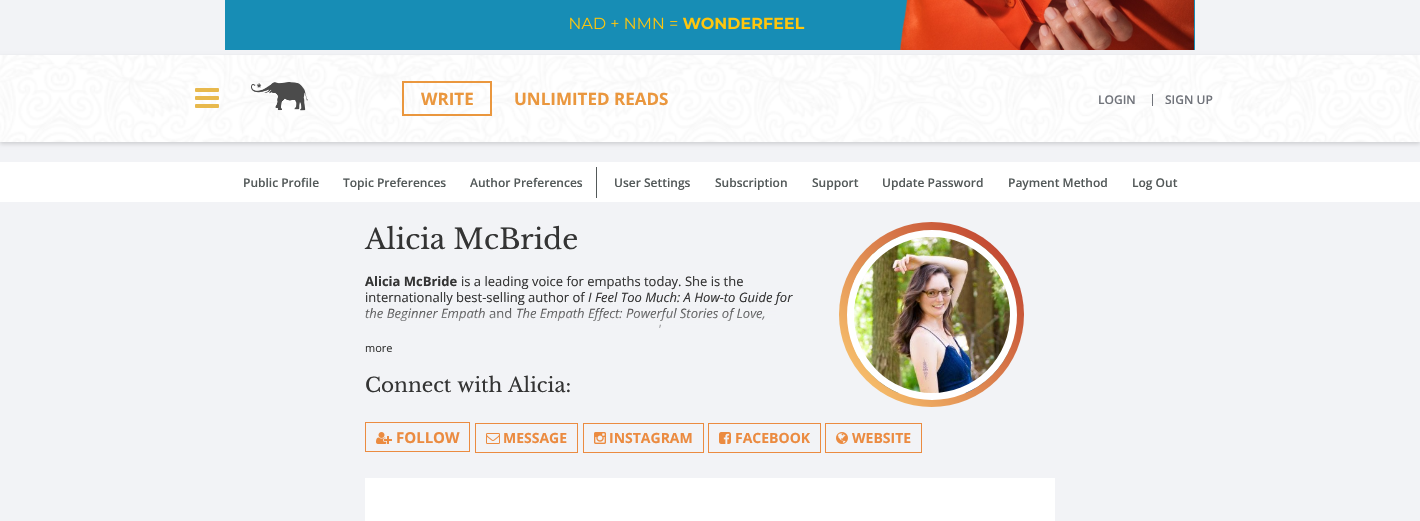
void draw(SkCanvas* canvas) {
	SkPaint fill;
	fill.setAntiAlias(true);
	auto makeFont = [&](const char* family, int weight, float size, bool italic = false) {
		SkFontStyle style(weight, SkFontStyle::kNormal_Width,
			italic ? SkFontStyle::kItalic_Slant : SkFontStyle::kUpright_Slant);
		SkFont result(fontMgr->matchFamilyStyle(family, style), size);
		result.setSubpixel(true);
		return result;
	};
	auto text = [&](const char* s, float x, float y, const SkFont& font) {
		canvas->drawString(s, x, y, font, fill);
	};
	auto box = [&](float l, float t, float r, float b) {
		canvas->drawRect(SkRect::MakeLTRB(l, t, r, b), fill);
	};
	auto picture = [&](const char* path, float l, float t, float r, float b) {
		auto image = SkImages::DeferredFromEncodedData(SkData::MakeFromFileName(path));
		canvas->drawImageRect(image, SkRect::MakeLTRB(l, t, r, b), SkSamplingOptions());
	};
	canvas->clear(0xFFF2F3F6);
	picture("image0.png", 225, 0, 1195, 50);
	fill.setColor(0x26000000);
	fill.setMaskFilter(SkMaskFilter::MakeBlur(kNormal_SkBlurStyle, 2));
	canvas->drawRect(SkRect::MakeLTRB(0, 57, 1420, 144), fill);
	fill.setMaskFilter(nullptr);
	picture("image1.png", 0, 55, 1420, 142);
	picture("image2.png", 195, 88, 219, 108);
	picture("image3.png", 251, 82, 308, 111);
	fill.setStyle(SkPaint::kStroke_Style);
	fill.setStrokeWidth(2);
	fill.setColor(0xFFEA973E);
	canvas->drawRect(SkRect::MakeLTRB(403, 82, 491, 115), fill);
	fill.setStyle(SkPaint::kFill_Style);
	fill.setColor(0xFF70737A);
	box(1152, 94, 1153, 106);
	fill.setColor(0xFFFFFFFF);
	box(0, 162, 1420, 202);
	fill.setColor(0xFF535959);
	box(596, 167, 597, 198);
	{
		const SkColor colors[] = {0xFFFFD174, 0xFFB93428};
		const float stops[] = {0, 1};
		const SkPoint ends[] = {{832, 398}, {1031, 231}};
		fill.setShader(SkGradientShader::MakeLinear(ends, colors, stops, 2, SkTileMode::kClamp));
		fill.setAlpha(255);
	}
	canvas->drawCircle(931.5f, 314.5f, 92.5f, fill);
	picture("image4.png", 854, 237, 1010, 393);
	fill.setStyle(SkPaint::kStroke_Style);
	fill.setStrokeWidth(7);
	fill.setShader(nullptr);
	fill.setColor(0xFFFFFFFF);
	canvas->drawCircle(932, 315, 81.5f, fill);
	fill.setStrokeWidth(1);
	fill.setColor(0xFFEB8B40);
	canvas->drawRect(SkRect::MakeLTRB(365.5f, 422.5f, 469.5f, 451.5f), fill);
	picture("image5.png", 376, 432, 392, 444);
	canvas->drawRect(SkRect::MakeLTRB(475.5f, 423.5f, 577.5f, 452.5f), fill);
	picture("image6.png", 486, 433, 500, 444);
	canvas->drawRect(SkRect::MakeLTRB(583.5f, 423.5f, 703.5f, 452.5f), fill);
	picture("image7.png", 594, 432, 606, 444);
	canvas->drawRect(SkRect::MakeLTRB(708.5f, 423.5f, 820.5f, 452.5f), fill);
	picture("image8.png", 719, 432, 731, 444);
	canvas->drawRect(SkRect::MakeLTRB(825.5f, 423.5f, 921.5f, 452.5f), fill);
	picture("image9.png", 836, 432, 848, 444);
	fill.setStyle(SkPaint::kFill_Style);
	fill.setColor(0xFFFFFFFF);
	box(365, 478, 1055, 521);
	auto font1 = makeFont("Open Sans", 700, 17);
	fill.setColor(0xFFEA973E);
	text("WRITE", 421, 105, font1);
	text("UNLIMITED READS", 514, 105, font1);
	auto font2 = makeFont("Open Sans", 600, 12);
	fill.setColor(0xFF70737A);
	text("LOGIN", 1098, 104, font2);
	text("SIGN UP", 1165, 104, font2);
	fill.setColor(0xFF535959);
	text("Public Profile", 243, 187, font2);
	text("Topic Preferences", 343, 187, font2);
	text("Author Preferences", 470, 187, font2);
	text("User Settings", 614, 187, font2);
	text("Subscription", 715, 187, font2);
	text("Support", 812, 187, font2);
	text("Update Password", 882, 187, font2);
	text("Payment Method", 1008, 187, font2);
	text("Log Out", 1132, 187, font2);
	auto font3 = makeFont("Libre Baskerville", 400, 28);
	fill.setColor(0xFF343434);
	text("Alicia McBride", 365, 249, font3);
	auto font4 = makeFont("Open Sans", 700, 13);
	text("Alicia McBride", 365, 286, font4);
	auto font5 = makeFont("Open Sans", 400, 13);
	text("is a leading voice for empaths today. She is the", 461, 286, font5);
	text("internationally best-selling author of", 365, 302, font5);
	auto font6 = makeFont("Open Sans", 400, 13, true);
	text("I Feel Too Much: A How-to Guide for", 588, 302, font6);
	text("the Beginner Empath", 365, 318, font6);
	text("and", 489, 318, font5);
	text("The Empath Effect: Powerful Stories of Love,", 516, 318, font6);
	text("’", 659, 334, font5);
	{
		const SkColor colors[] = {0x00F2F3F6, 0xFFF2F3F6};
		const float stops[] = {0, 0.8f};
		const SkPoint ends[] = {{590, 303}, {590, 353}};
		fill.setShader(SkGradientShader::MakeLinear(ends, colors, stops, 2, SkTileMode::kClamp));
		fill.setAlpha(255);
	}
	box(365, 304, 776, 328);
	auto font7 = makeFont("Open Sans", 400, 11);
	fill.setShader(nullptr);
	fill.setColor(0xFF343434);
	text("more", 365, 352, font7);
	auto font8 = makeFont("Libre Baskerville", 400, 20);
	text("Connect with Alicia:", 365, 392, font8);
	auto font9 = makeFont("Open Sans", 700, 15);
	fill.setColor(0xFFEB8B40);
	text("FOLLOW", 396, 443, font9);
	auto font10 = makeFont("Open Sans", 700, 14);
	text("MESSAGE", 503, 443, font10);
	text("INSTAGRAM", 609, 443, font10);
	text("FACEBOOK", 735, 443, font10);
	text("WEBSITE", 852, 443, font10);
}
